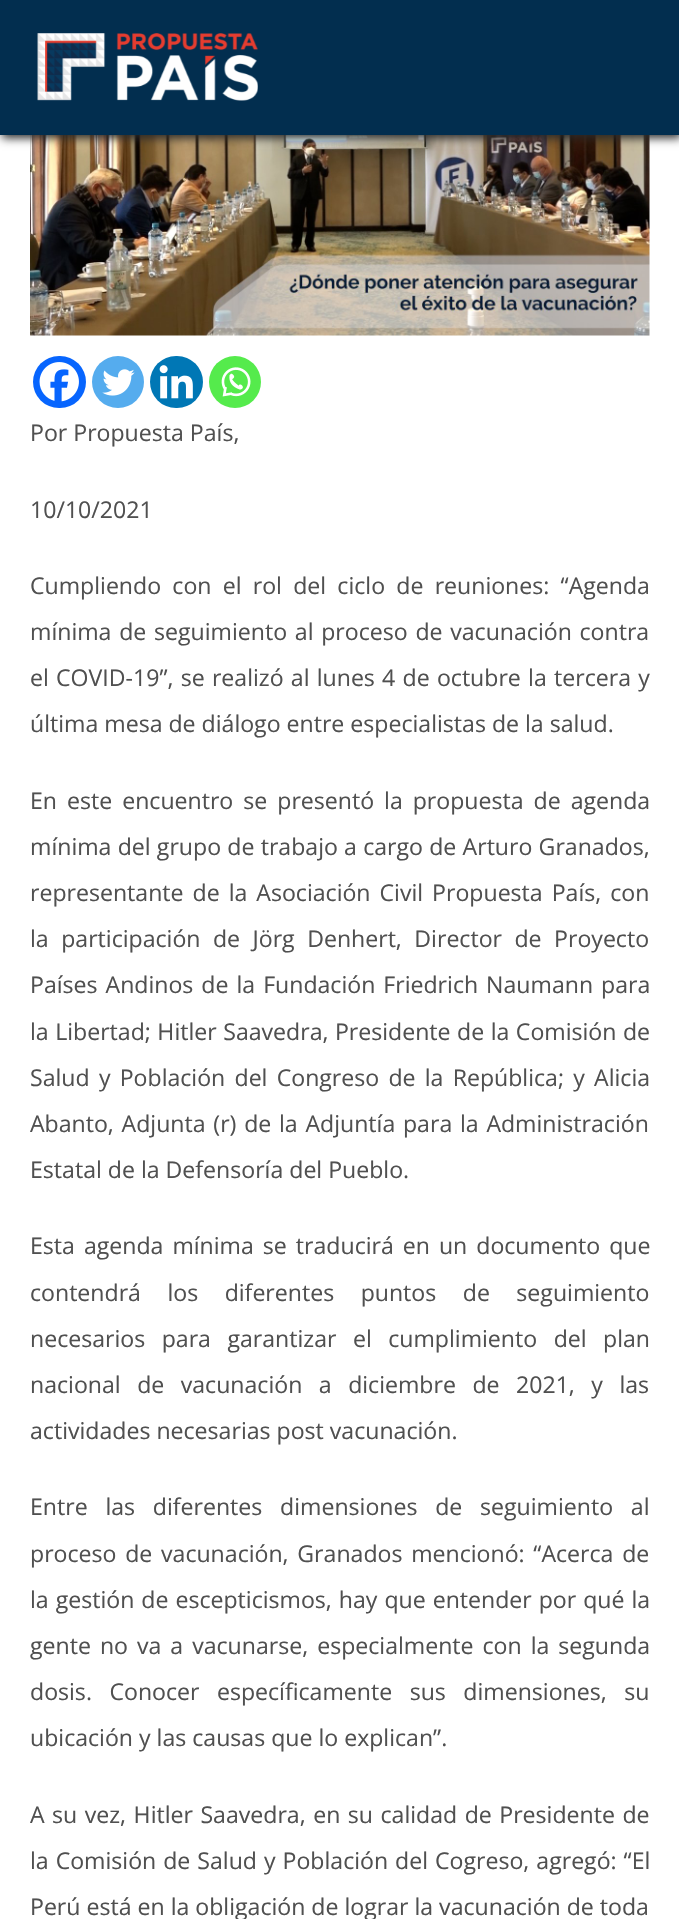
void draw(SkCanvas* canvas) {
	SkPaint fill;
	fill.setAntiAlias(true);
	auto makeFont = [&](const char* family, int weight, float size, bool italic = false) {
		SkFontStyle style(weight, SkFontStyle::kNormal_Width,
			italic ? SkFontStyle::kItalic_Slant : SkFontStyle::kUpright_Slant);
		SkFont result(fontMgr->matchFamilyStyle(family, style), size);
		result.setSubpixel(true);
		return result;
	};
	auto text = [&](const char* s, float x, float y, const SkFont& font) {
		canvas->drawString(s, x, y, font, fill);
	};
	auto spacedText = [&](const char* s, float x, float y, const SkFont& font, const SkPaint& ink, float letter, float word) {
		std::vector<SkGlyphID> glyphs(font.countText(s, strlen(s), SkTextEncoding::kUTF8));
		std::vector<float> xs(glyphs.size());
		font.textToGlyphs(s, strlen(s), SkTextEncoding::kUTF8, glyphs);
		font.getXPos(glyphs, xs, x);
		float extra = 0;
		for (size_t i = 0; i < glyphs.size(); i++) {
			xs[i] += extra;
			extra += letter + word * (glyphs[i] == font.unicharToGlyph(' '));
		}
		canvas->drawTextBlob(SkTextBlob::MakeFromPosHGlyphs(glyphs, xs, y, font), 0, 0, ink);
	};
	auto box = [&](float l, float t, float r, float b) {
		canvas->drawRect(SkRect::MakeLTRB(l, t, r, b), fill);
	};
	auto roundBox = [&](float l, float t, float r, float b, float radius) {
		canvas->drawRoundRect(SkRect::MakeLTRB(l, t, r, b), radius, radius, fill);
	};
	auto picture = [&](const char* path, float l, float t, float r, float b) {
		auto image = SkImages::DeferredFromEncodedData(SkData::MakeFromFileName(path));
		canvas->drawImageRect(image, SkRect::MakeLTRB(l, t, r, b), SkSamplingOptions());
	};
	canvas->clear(0xFFFFFFFF);
	picture("image1.png", 30, 135, 650, 336);
	fill.setColor(0xFF292929);
	fill.setMaskFilter(SkMaskFilter::MakeBlur(kNormal_SkBlurStyle, 4.5f));
	canvas->drawRect(SkRect::MakeLTRB(2, 3, 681, 138), fill);
	fill.setMaskFilter(nullptr);
	fill.setColor(0xFF022E4F);
	box(0, 0, 679, 135);
	picture("image0.png", 37, 33, 258, 101);
	fill.setColor(0xFF0765FE);
	roundBox(33, 356, 86, 408, 26);
	picture("image2.png", 39, 362, 79, 402);
	fill.setColor(0xFF55ACEE);
	canvas->drawCircle(118, 382, 26, fill);
	picture("image3.png", 102, 369, 135, 396);
	fill.setColor(0xFF0077B5);
	roundBox(150, 356, 203, 408, 26);
	picture("image4.png", 159, 365, 193, 399);
	fill.setColor(0xFF55EB4C);
	canvas->drawCircle(235, 382, 26, fill);
	picture("image5.png", 221, 367, 251, 397);
	auto font1 = makeFont("Open Sans", 400, 23.1f);
	fill.setColor(0xFF505050);
	text("Por Propuesta País,", 30, 441, font1);
	text("10/10/2021", 30, 518, font1);
	spacedText("Cumpliendo con el rol del ciclo de reuniones: “Agenda", 30, 594, font1, fill, 0, 5.25f);
	spacedText("mínima de seguimiento al proceso de vacunación contra", 30, 640, font1, fill, 0, 1.75f);
	spacedText("el COVID-19”, se realizó al lunes 4 de octubre la tercera y", 30, 686, font1, fill, 0, 1.25f);
	text("última mesa de diálogo entre especialistas de la salud.", 30, 732, font1);
	spacedText("En este encuentro se presentó la propuesta de agenda", 30, 809, font1, fill, 0, 4);
	spacedText("mínima del grupo de trabajo a cargo de Arturo Granados,", 30, 855, font1, fill, 0, 0.25f);
	spacedText("representante de la Asociación Civil Propuesta País, con", 30, 901, font1, fill, 0, 3);
	spacedText("la participación de Jörg Denhert, Director de Proyecto", 30, 947, font1, fill, 0, 6.5f);
	spacedText("Países Andinos de la Fundación Friedrich Naumann para", 30, 993, font1, fill, 0, 2);
	spacedText("la Libertad; Hitler Saavedra, Presidente de la Comisión de", 30, 1040, font1, fill, 0, 0.5f);
	spacedText("Salud y Población del Congreso de la República; y Alicia", 30, 1086, font1, fill, 0, 3.25f);
	spacedText("Abanto, Adjunta (r) de la Adjuntía para la Administración", 30, 1132, font1, fill, 0, 1.75f);
	text("Estatal de la Defensoría del Pueblo.", 30, 1178, font1);
	spacedText("Esta agenda mínima se traducirá en un documento que", 30, 1254, font1, fill, 0, 3);
	spacedText("contendrá los diferentes puntos de seguimiento", 30, 1301, font1, fill, 0, 20.5f);
	spacedText("necesarios para garantizar el cumplimiento del plan", 30, 1347, font1, fill, 0, 10.5f);
	spacedText("nacional de vacunación a diciembre de 2021, y las", 30, 1393, font1, fill, 0, 10.5f);
	text("actividades necesarias post vacunación.", 30, 1439, font1);
	spacedText("Entre las diferentes dimensiones de seguimiento al", 30, 1515, font1, fill, 0, 11.75f);
	spacedText("proceso de vacunación, Granados mencionó: “Acerca de", 30, 1562, font1, fill, 0, 2.75f);
	spacedText("la gestión de escepticismos, hay que entender por qué la", 30, 1608, font1, fill, 0, 1);
	spacedText("gente no va a vacunarse, especialmente con la segunda", 30, 1654, font1, fill, 0, 3);
	spacedText("dosis. Conocer específicamente sus dimensiones, su", 30, 1700, font1, fill, 0, 11.5f);
	text("ubicación y las causas que lo explican”.", 30, 1746, font1);
	spacedText("A su vez, Hitler Saavedra, en su calidad de Presidente de", 30, 1823, font1, fill, 0, 1.5f);
	spacedText("la Comisión de Salud y Población del Cogreso, agregó: “El", 30, 1869, font1, fill, 0, 1);
	text("Perú está en la obligación de lograr la vacunación de toda", 30, 1915, font1);
}
